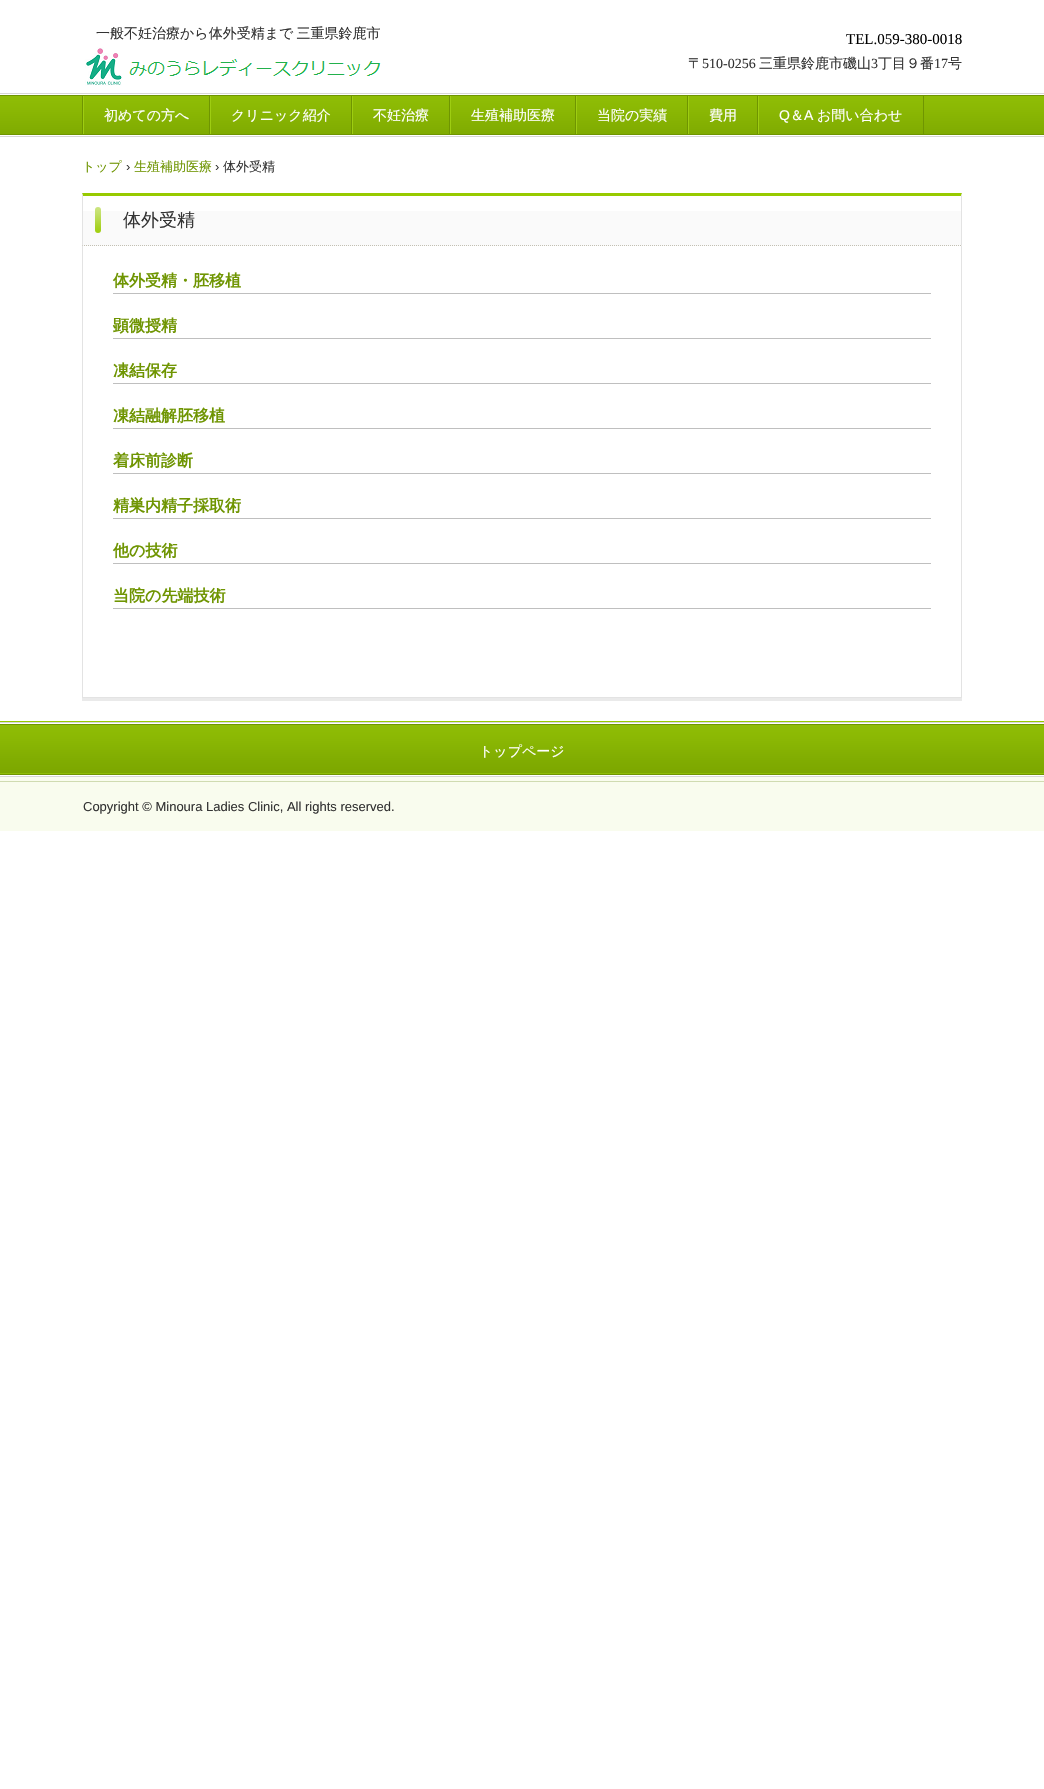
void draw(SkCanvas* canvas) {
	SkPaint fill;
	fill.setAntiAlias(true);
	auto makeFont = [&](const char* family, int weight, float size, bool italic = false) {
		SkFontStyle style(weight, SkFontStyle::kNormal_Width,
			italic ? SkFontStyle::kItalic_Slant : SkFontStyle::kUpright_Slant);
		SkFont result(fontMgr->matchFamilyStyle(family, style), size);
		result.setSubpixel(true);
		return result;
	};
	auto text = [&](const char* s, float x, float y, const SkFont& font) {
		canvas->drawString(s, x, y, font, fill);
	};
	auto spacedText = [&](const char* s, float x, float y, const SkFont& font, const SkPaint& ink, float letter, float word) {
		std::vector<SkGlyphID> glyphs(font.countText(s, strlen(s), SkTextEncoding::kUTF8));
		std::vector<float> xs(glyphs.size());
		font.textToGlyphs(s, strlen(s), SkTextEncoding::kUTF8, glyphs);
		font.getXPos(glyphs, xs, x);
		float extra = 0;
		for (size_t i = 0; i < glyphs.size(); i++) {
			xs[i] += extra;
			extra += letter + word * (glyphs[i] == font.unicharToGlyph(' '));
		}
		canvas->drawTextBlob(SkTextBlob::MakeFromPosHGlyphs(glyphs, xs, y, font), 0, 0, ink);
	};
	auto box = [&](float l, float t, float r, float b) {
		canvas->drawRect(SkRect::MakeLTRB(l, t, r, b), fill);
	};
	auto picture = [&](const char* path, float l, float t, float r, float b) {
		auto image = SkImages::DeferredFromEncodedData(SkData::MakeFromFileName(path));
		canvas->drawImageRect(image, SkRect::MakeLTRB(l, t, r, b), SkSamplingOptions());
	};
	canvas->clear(0xFFFFFFFF);
	picture("image0.png", 85, 47, 381, 86);
	picture("image1.png", 0, 96, 1044, 134);
	fill.setColor(0xFFD7D7D7);
	box(0, 93, 1044, 94);
	box(0, 136, 1044, 137);
	fill.setColor(0xFF6F9501);
	box(0, 95, 1044, 96);
	box(82, 96, 83, 134);
	box(209, 96, 210, 134);
	fill.setColor(0xFF9ECD12);
	box(83, 96, 84, 134);
	fill.setColor(0xFF6F9501);
	box(351, 96, 352, 134);
	fill.setColor(0xFF9ECD12);
	box(210, 96, 211, 134);
	fill.setColor(0xFF6F9501);
	box(449, 96, 450, 134);
	fill.setColor(0xFF9ECD12);
	box(352, 96, 353, 134);
	fill.setColor(0xFF6F9501);
	box(575, 96, 576, 134);
	fill.setColor(0xFF9ECD12);
	box(450, 96, 451, 134);
	fill.setColor(0xFF6F9501);
	box(687, 96, 688, 134);
	fill.setColor(0xFF9ECD12);
	box(576, 96, 577, 134);
	fill.setColor(0xFF6F9501);
	box(757, 96, 758, 134);
	fill.setColor(0xFF9ECD12);
	box(688, 96, 689, 134);
	fill.setColor(0xFF6F9501);
	box(923, 96, 924, 134);
	fill.setColor(0xFF9ECD12);
	box(758, 96, 759, 134);
	fill.setColor(0xFF6F9501);
	box(0, 134, 1044, 135);
	fill.setColor(0xFFFAFAFA);
	box(83, 211, 962, 246);
	fill.setColor(0xFF97CA00);
	canvas->drawPath(SkPathBuilder().moveTo(82, 193).lineTo(962, 193).lineTo(961, 196).lineTo(83, 196).close().detach(), fill);
	fill.setColor(0xFFE3E3E3);
	canvas->drawPath(SkPathBuilder().moveTo(962, 193).lineTo(962, 246).lineTo(961, 245).lineTo(961, 196).close().detach(), fill);
	fill.setStyle(SkPaint::kStroke_Style);
	fill.setStrokeWidth(1);
	fill.setColor(0xFFC3C0B3);
	fill.setPathEffect(SkDashPathEffect::Make({{1, 1}}, 0));
	canvas->drawPath(SkPathBuilder().moveTo(82, 245.5f).lineTo(962, 245.5f).detach(), fill);
	fill.setPathEffect(nullptr);
	fill.setStyle(SkPaint::kFill_Style);
	fill.setColor(0xFFE3E3E3);
	canvas->drawPath(SkPathBuilder().moveTo(82, 246).lineTo(82, 193).lineTo(83, 196).lineTo(83, 245).close().detach(), fill);
	picture("image2.png", 95, 207, 101, 233);
	fill.setColor(0xFFEAEAEA);
	box(82, 698, 962, 701);
	fill.setColor(0xFFE3E3E3);
	box(961, 246, 962, 698);
	box(82, 697, 962, 698);
	box(82, 246, 83, 698);
	fill.setColor(0xFFBFBFBF);
	box(113, 293, 931, 294);
	box(113, 338, 931, 339);
	box(113, 383, 931, 384);
	box(113, 428, 931, 429);
	box(113, 473, 931, 474);
	box(113, 518, 931, 519);
	box(113, 563, 931, 564);
	box(113, 608, 931, 609);
	fill.setColor(0xFFF9FCEE);
	box(0, 777, 1044, 831);
	fill.setColor(0xFF97CA00);
	box(0, 721, 1044, 722);
	picture("image3.png", 0, 725, 1044, 774);
	fill.setColor(0xFFD7D7D7);
	box(0, 722, 1044, 723);
	box(0, 776, 1044, 777);
	fill.setColor(0xFF6F9501);
	box(0, 724, 1044, 725);
	box(0, 774, 1044, 775);
	fill.setColor(0xFFD0DBB1);
	box(0, 781, 1044, 782);
	auto font1 = makeFont("WenQuanYi Zen Hei", 500, 14);
	fill.setColor(0xFF333333);
	spacedText("一般不妊治療から体外受精まで 三重県鈴鹿市", 96, 38, font1, fill, 0, -1);
	auto font2 = makeFont("Liberation Serif", 400, 15);
	fill.setColor(0xFF000000);
	text("TEL.059-380-0018", 846, 44, font2);
	fill.setColor(0xFF333333);
	text("〒", 688, 68, font1);
	auto font3 = makeFont("Liberation Serif", 400, 14);
	text("510-0256", 702, 68, font3);
	text("三重県鈴鹿市磯山", 759, 68, font1);
	text("3", 871, 68, font3);
	text("丁目９番", 878, 68, font1);
	text("17", 934, 68, font3);
	text("号", 948, 68, font1);
	fill.setColor(0xFFFFFFFF);
	text("初めての方へ", 104, 120, font1);
	text("クリニック紹介", 231, 120, font1);
	text("不妊治療", 373, 120, font1);
	text("生殖補助医療", 471, 120, font1);
	text("当院の実績", 597, 120, font1);
	text("費用", 709, 120, font1);
	auto font4 = makeFont("Liberation Sans", 400, 14);
	text("Q", 779, 120, font4);
	text("＆", 790, 120, font1);
	text("A", 804, 120, font4);
	text("お問い合わせ", 817, 120, font1);
	auto font5 = makeFont("WenQuanYi Zen Hei", 500, 13);
	fill.setColor(0xFF6F9502);
	text("トップ", 82, 171, font5);
	auto font6 = makeFont("Liberation Sans", 400, 13);
	fill.setColor(0xFF333333);
	text("›", 126, 171, font6);
	fill.setColor(0xFF6F9502);
	text("生殖補助医療", 134, 171, font5);
	fill.setColor(0xFF333333);
	text("›", 215, 171, font6);
	text("体外受精", 223, 171, font5);
	auto font7 = makeFont("WenQuanYi Zen Hei", 500, 18);
	text("体外受精", 123, 226, font7);
	auto font8 = makeFont("WenQuanYi Zen Hei", 700, 16);
	fill.setColor(0xFF6F9502);
	text("体外受精・胚移植", 113, 286, font8);
	text("顕微授精", 113, 331, font8);
	text("凍結保存", 113, 376, font8);
	text("凍結融解胚移植", 113, 421, font8);
	text("着床前診断", 113, 466, font8);
	text("精巣内精子採取術", 113, 511, font8);
	text("他の技術", 113, 556, font8);
	text("当院の先端技術", 113, 601, font8);
	fill.setColor(0xFFFFFFFF);
	text("トップページ", 479, 756, font1);
	fill.setColor(0xFF333333);
	text("Copyright © Minoura Ladies Clinic, All rights reserved.", 83, 811, font6);
}
